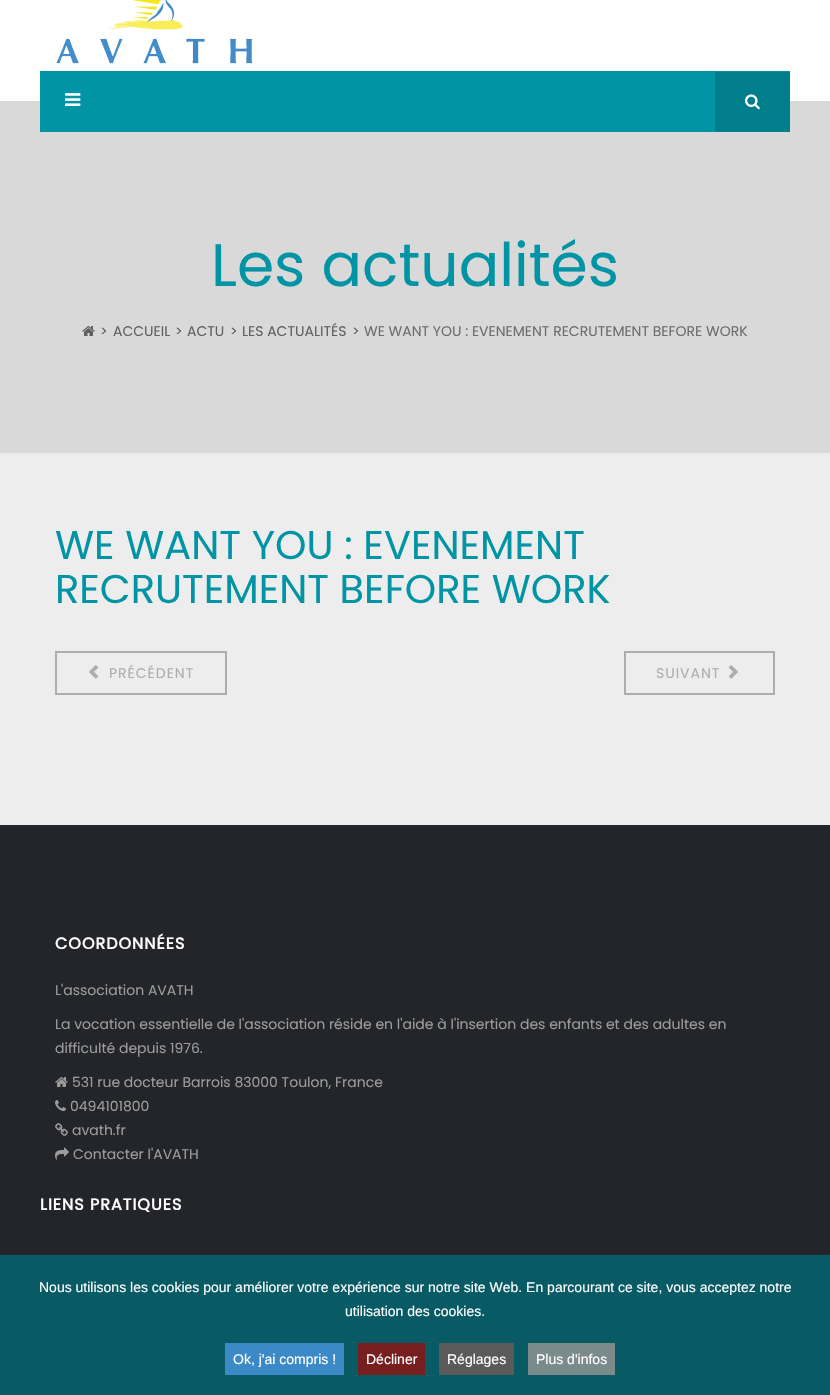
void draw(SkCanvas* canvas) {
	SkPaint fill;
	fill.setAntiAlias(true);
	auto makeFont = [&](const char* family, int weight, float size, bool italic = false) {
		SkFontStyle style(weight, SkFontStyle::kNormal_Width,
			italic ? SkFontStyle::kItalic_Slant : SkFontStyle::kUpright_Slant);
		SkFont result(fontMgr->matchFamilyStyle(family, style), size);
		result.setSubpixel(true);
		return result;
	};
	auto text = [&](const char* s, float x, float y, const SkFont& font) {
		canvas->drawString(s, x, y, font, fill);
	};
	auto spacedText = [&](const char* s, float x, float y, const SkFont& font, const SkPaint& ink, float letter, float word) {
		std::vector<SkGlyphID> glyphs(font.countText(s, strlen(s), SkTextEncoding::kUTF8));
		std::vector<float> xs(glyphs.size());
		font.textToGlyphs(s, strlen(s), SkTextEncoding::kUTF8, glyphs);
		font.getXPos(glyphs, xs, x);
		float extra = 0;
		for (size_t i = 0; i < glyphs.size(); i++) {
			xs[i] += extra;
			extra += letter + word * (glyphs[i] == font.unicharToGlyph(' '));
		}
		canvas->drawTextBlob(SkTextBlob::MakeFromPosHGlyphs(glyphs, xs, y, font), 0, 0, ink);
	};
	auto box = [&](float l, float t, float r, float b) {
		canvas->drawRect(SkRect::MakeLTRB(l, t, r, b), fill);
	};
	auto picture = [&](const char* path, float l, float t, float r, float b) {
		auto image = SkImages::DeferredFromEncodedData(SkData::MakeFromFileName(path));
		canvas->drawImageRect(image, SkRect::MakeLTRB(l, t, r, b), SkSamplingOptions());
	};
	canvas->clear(0xFFEDEDED);
	fill.setColor(0xFFFFFFFF);
	box(0, 0, 830, 101);
	picture("image0.png", 56, 0, 253, 64);
	fill.setColor(0xFFD9D9D9);
	box(0, 101, 830, 453);
	fill.setColor(0xFF0094A5);
	box(40, 71, 790, 132);
	picture("image1.png", 65, 93, 81, 106);
	fill.setColor(0xFF007E8C);
	box(715, 72, 790, 132);
	picture("image2.png", 745, 94, 760, 110);
	picture("image3.png", 82, 326, 95, 336);
	fill.setStyle(SkPaint::kStroke_Style);
	fill.setStrokeWidth(2);
	fill.setColor(0xFFADADAD);
	canvas->drawRect(SkRect::MakeLTRB(56, 652, 226, 694), fill);
	picture("image4.png", 89, 665, 99, 679);
	canvas->drawRect(SkRect::MakeLTRB(625, 652, 774, 694), fill);
	picture("image5.png", 728, 665, 738, 679);
	fill.setStyle(SkPaint::kFill_Style);
	fill.setColor(0xFF24252A);
	box(0, 825, 830, 1395);
	picture("image6.png", 55, 1077, 68, 1087);
	picture("image7.png", 55, 1100, 66, 1111);
	picture("image8.png", 55, 1123, 68, 1136);
	picture("image9.png", 55, 1147, 69, 1160);
	fill.setColor(0xCC006673);
	box(0, 1255, 830, 1395);
	fill.setColor(0xFF3B89C7);
	box(225, 1343, 344, 1375);
	fill.setColor(0xFF771F1F);
	box(358, 1343, 425, 1375);
	fill.setColor(0xFF5A5A5A);
	box(439, 1343, 514, 1375);
	fill.setColor(0xFF7B8A8B);
	box(528, 1343, 615, 1375);
	auto font1 = makeFont("Poppins", 400, 60);
	fill.setColor(0xFF0094A5);
	text("Les actualités", 211, 286, font1);
	auto font2 = makeFont("Poppins", 400, 14);
	fill.setColor(0xFF606060);
	text(">", 100, 336, font2);
	text("ACCUEIL", 113, 336, font2);
	text(">", 175, 336, font2);
	text("ACTU", 187, 336, font2);
	text(">", 230, 336, font2);
	text("LES ACTUALITÉS", 242, 336, font2);
	text(">", 352, 336, font2);
	fill.setColor(0xFF6D6D6D);
	text("WE WANT YOU : EVENEMENT RECRUTEMENT BEFORE WORK", 364, 336, font2);
	auto font3 = makeFont("Poppins", 400, 40);
	fill.setColor(0xFF0094A5);
	text("WE WANT YOU : EVENEMENT", 55, 559, font3);
	text("RECRUTEMENT BEFORE WORK", 55, 603, font3);
	fill.setColor(0xFFADADAD);
	spacedText("PRÉCÉDENT", 109, 678, font2, fill, 1, 0);
	spacedText("SUIVANT", 656, 678, font2, fill, 1, 0);
	auto font4 = makeFont("Poppins", 700, 16);
	fill.setColor(0xFFFFFFFF);
	spacedText("COORDONNÉES", 55, 949, font4, fill, 1, 0);
	fill.setColor(0xFF9C9C9C);
	text("L'association AVATH", 55, 995, font2);
	text("La vocation essentielle de l'association réside en l'aide à l'insertion des enfants et des adultes en", 55, 1029, font2);
	text("difficulté depuis 1976.", 55, 1053, font2);
	text("531 rue docteur Barrois 83000 Toulon, France", 72, 1087, font2);
	text("0494101800", 70, 1111, font2);
	text("avath.fr", 72, 1135, font2);
	text("Contacter l'AVATH", 73, 1159, font2);
	fill.setColor(0xFFFFFFFF);
	spacedText("LIENS PRATIQUES", 40, 1210, font4, fill, 1, 0);
	auto font5 = makeFont("Liberation Sans", 400, 14);
	text("Nous utilisons les cookies pour améliorer votre expérience sur notre site Web. En parcourant ce site, vous acceptez notre", 39, 1292, font5);
	text("utilisation des cookies.", 345, 1316, font5);
	text("Ok, j'ai compris !", 233, 1364, font5);
	text("Décliner", 366, 1364, font5);
	text("Réglages", 447, 1364, font5);
	text("Plus d'infos", 536, 1364, font5);
}
